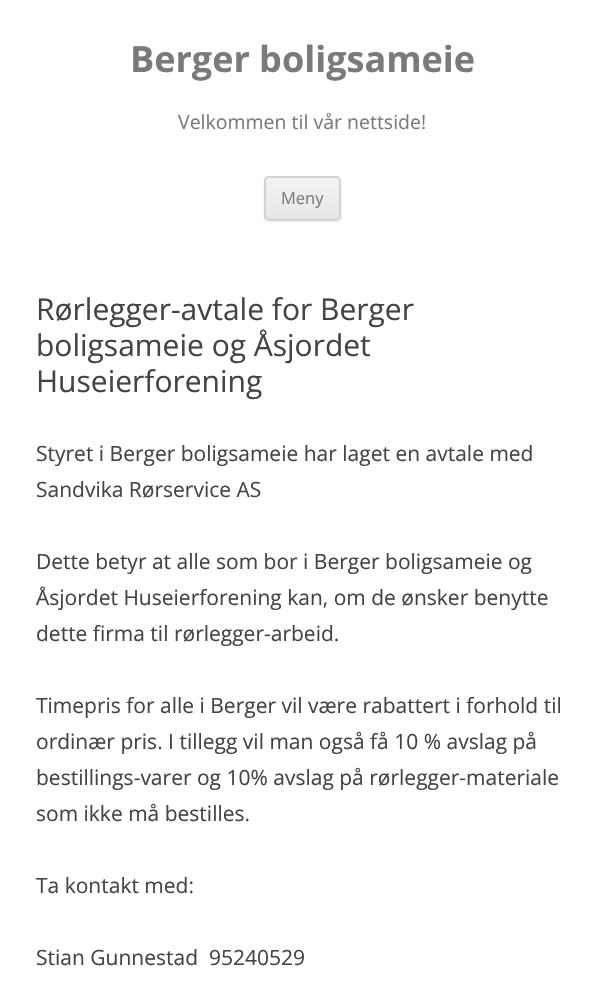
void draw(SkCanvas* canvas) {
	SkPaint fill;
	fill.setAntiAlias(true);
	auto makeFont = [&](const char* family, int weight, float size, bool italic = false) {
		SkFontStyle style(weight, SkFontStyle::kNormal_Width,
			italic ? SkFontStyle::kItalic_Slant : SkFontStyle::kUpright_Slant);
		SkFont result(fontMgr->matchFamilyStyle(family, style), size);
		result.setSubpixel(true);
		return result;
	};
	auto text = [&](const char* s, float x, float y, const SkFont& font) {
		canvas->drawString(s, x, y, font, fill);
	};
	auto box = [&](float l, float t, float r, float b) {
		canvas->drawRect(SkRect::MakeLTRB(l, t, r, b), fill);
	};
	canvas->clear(0xFFFFFFFF);
	fill.setColor(0x1A404040);
	fill.setMaskFilter(SkMaskFilter::MakeBlur(kNormal_SkBlurStyle, 1.5f));
	canvas->drawRoundRect(SkRect::MakeLTRB(264, 177, 341, 222), 5, 5, fill);
	fill.setMaskFilter(nullptr);
	canvas->save();
	canvas->clipPath(SkPathBuilder().moveTo(269, 176).lineTo(336, 176).cubicTo(339, 176, 341, 178, 341, 181).lineTo(341, 216).cubicTo(341, 219, 339, 221, 336, 221).lineTo(269, 221).cubicTo(266, 221, 264, 219, 264, 216).lineTo(264, 181).cubicTo(264, 178, 266, 176, 269, 176).close().detach(), true);
	{
		const SkColor colors[] = {0xFFF4F4F4, 0xFFE6E6E6};
		const float stops[] = {0, 1};
		const SkPoint ends[] = {{302, 177}, {302, 219}};
		fill.setShader(SkGradientShader::MakeLinear(ends, colors, stops, 2, SkTileMode::kClamp));
		fill.setAlpha(255);
	}
	box(264, 177, 341, 219);
	canvas->restore();
	fill.setStyle(SkPaint::kStroke_Style);
	fill.setStrokeWidth(2);
	fill.setShader(nullptr);
	fill.setColor(0xFFD2D2D2);
	canvas->drawRoundRect(SkRect::MakeLTRB(265, 177, 340, 220), 4, 4, fill);
	auto font1 = makeFont("Open Sans", 700, 36);
	fill.setStyle(SkPaint::kFill_Style);
	fill.setColor(0xFF7A7A7A);
	text("Berger boligsameie", 130, 72, font1);
	auto font2 = makeFont("Open Sans", 400, 19.5f);
	text("Velkommen til vår nettside!", 178, 129, font2);
	auto font3 = makeFont("Open Sans", 400, 16.5f);
	text("Meny", 281, 204, font3);
	auto font4 = makeFont("Open Sans", 400, 30);
	fill.setColor(0xFF444444);
	text("Rørlegger-avtale for Berger", 36, 320, font4);
	text("boligsameie og Åsjordet", 36, 356, font4);
	text("Huseierforening", 36, 392, font4);
	auto font5 = makeFont("Open Sans", 400, 21);
	text("Styret i Berger boligsameie har laget en avtale med", 36, 461, font5);
	text("Sandvika Rørservice AS", 36, 497, font5);
	text("Dette betyr at alle som bor i Berger boligsameie og", 36, 569, font5);
	text("Åsjordet Huseierforening kan, om de ønsker benytte", 36, 605, font5);
	text("dette firma til rørlegger-arbeid.", 36, 641, font5);
	text("Timepris for alle i Berger vil være rabattert i forhold til", 36, 713, font5);
	text("ordinær pris. I tillegg vil man også få 10 % avslag på", 36, 749, font5);
	text("bestillings-varer og 10% avslag på rørlegger-materiale", 36, 785, font5);
	text("som ikke må bestilles.", 36, 821, font5);
	text("Ta kontakt med:", 36, 893, font5);
	text("Stian Gunnestad  95240529", 36, 965, font5);
}
